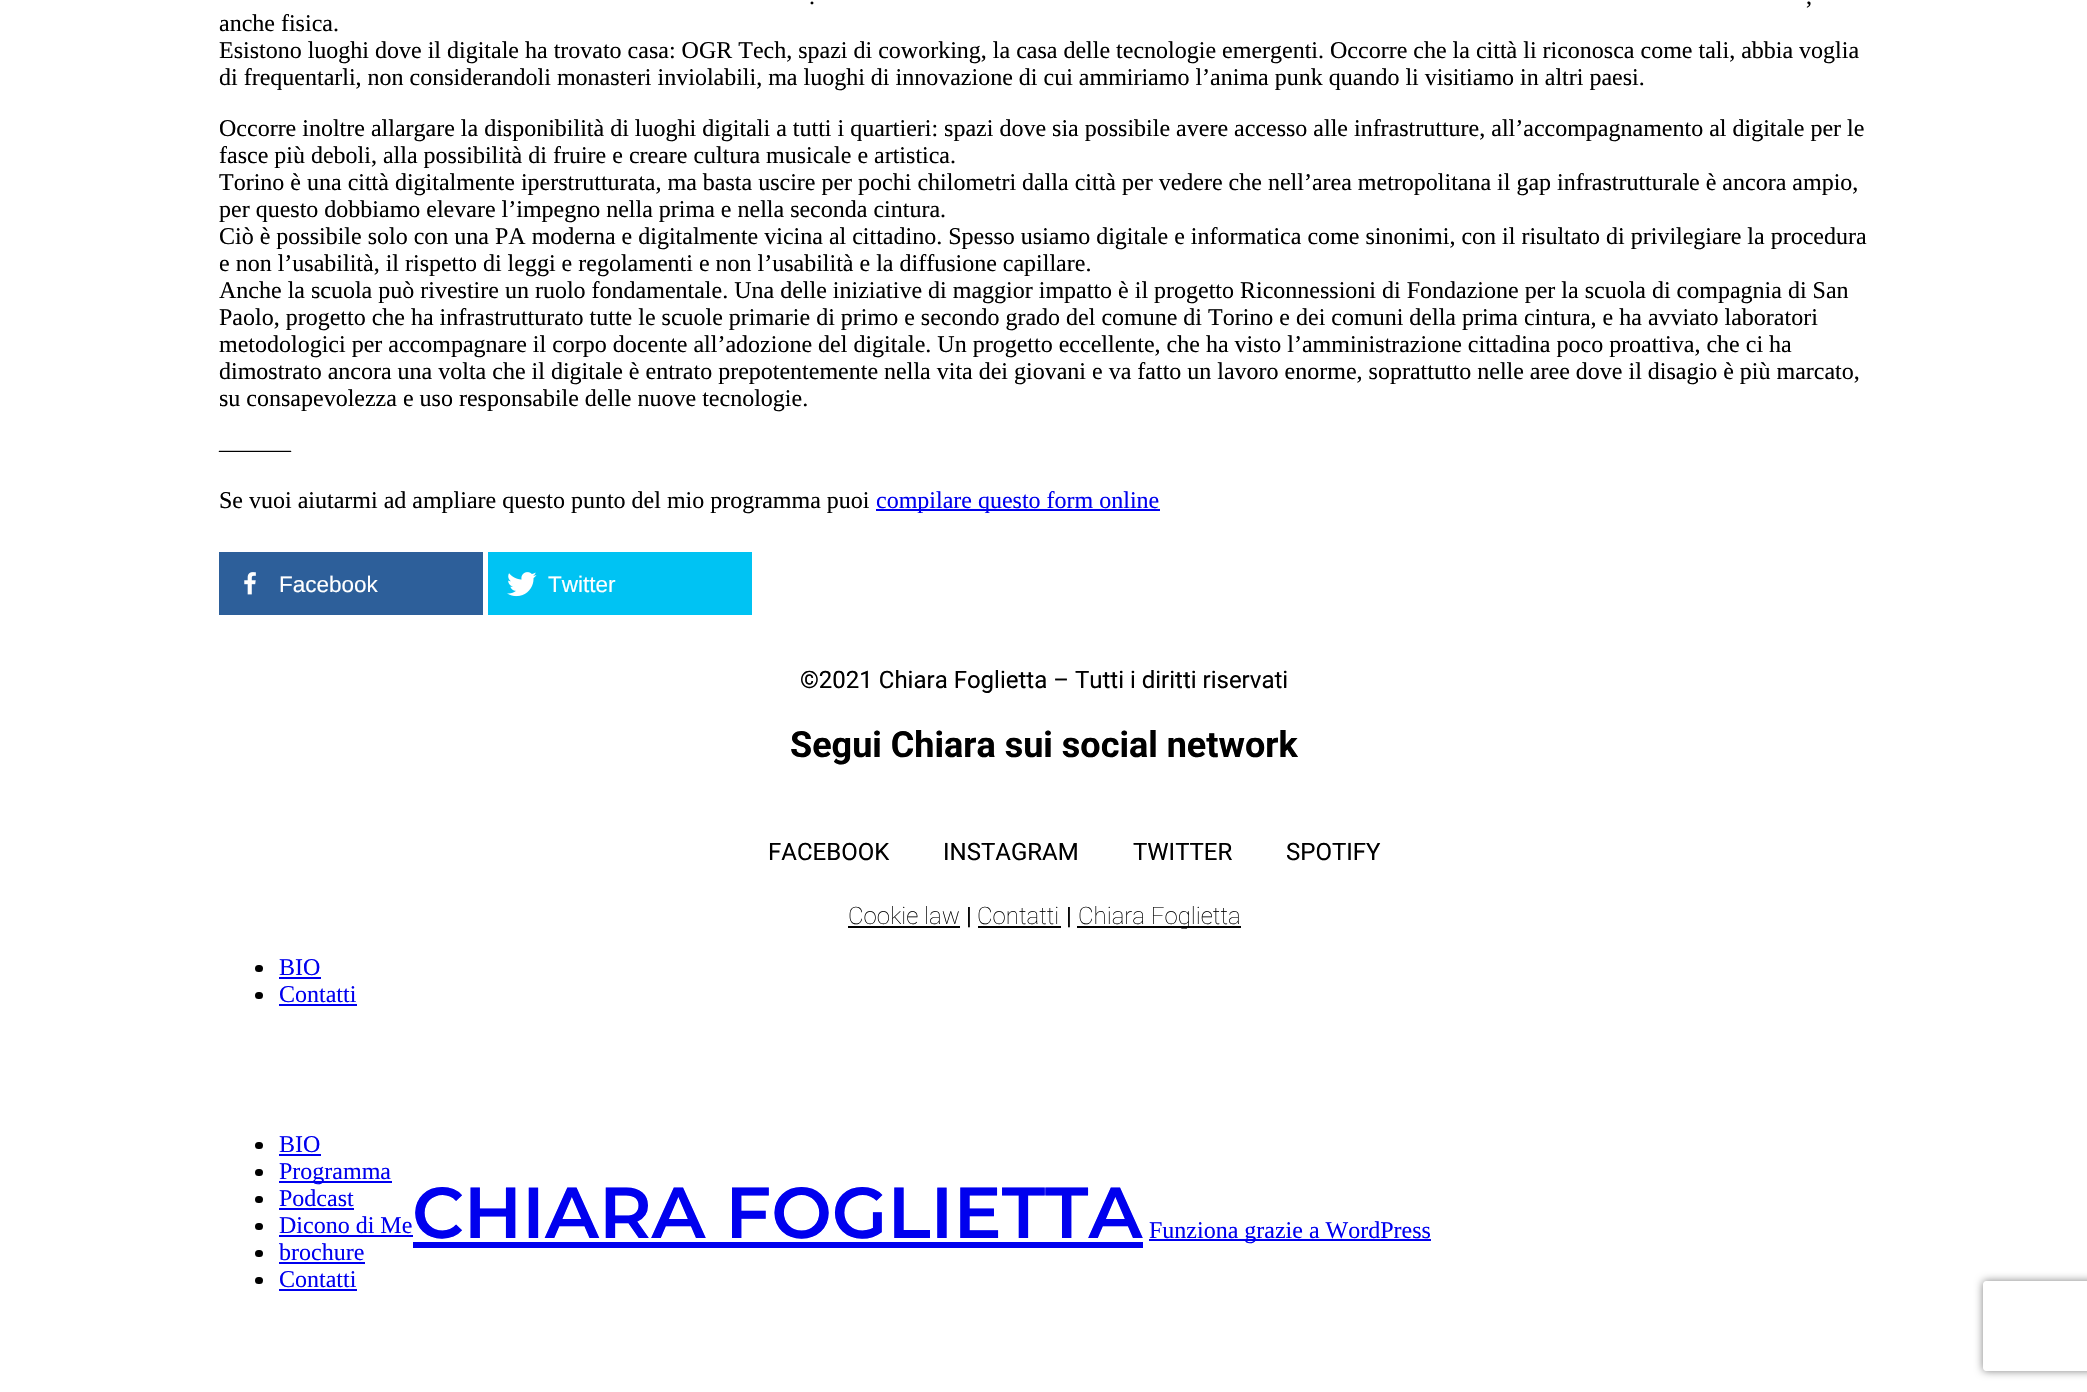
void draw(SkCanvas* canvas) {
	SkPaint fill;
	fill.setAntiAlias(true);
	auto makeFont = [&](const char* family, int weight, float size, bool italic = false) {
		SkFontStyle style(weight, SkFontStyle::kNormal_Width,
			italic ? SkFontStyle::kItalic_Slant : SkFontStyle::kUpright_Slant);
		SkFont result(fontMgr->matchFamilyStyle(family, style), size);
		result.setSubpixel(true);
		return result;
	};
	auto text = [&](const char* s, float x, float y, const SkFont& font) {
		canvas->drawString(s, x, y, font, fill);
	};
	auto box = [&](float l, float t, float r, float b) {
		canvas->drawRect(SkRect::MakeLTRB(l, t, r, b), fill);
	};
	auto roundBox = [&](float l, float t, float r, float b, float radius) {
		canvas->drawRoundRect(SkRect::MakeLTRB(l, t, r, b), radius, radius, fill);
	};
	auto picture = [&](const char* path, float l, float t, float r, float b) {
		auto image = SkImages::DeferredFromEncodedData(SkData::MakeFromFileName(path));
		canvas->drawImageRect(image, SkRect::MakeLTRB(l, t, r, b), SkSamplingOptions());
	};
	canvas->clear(0xFFFFFFFF);
	fill.setColor(0xFF0000EE);
	box(876, 509, 1160, 511);
	fill.setColor(0xFF2D5F9A);
	box(219, 552, 483, 615);
	picture("image0.png", 244, 572, 256, 595);
	fill.setColor(0xFF00C3F3);
	box(488, 552, 752, 615);
	picture("image1.png", 507, 572, 537, 597);
	fill.setColor(0xFF000000);
	box(848, 926, 960, 928);
	box(978, 926, 1061, 928);
	box(1077, 926, 1241, 928);
	roundBox(255, 965, 263, 972, 3.5f);
	fill.setColor(0xFF0000EE);
	box(279, 977, 321, 979);
	fill.setColor(0xFF000000);
	roundBox(255, 992, 263, 999, 3.5f);
	fill.setColor(0xFF0000EE);
	box(279, 1004, 357, 1006);
	fill.setColor(0xFF000000);
	roundBox(255, 1142, 263, 1149, 3.5f);
	fill.setColor(0xFF0000EE);
	box(279, 1154, 321, 1156);
	fill.setColor(0xFF000000);
	roundBox(255, 1169, 263, 1176, 3.5f);
	fill.setColor(0xFF0000EE);
	box(279, 1181, 392, 1183);
	fill.setColor(0xFF000000);
	roundBox(255, 1196, 263, 1203, 3.5f);
	fill.setColor(0xFF0000EE);
	box(279, 1208, 354, 1210);
	fill.setColor(0xFF000000);
	roundBox(255, 1223, 263, 1230, 3.5f);
	fill.setColor(0xFF0000EE);
	box(279, 1235, 413, 1237);
	fill.setColor(0xFF000000);
	roundBox(255, 1250, 263, 1257, 3.5f);
	fill.setColor(0xFF0000EE);
	box(279, 1262, 365, 1264);
	fill.setColor(0xFF000000);
	roundBox(255, 1277, 263, 1284, 3.5f);
	fill.setColor(0xFF0000EE);
	box(279, 1289, 357, 1291);
	box(413, 1242, 1143, 1248);
	box(1149, 1239, 1431, 1241);
	canvas->save();
	canvas->clipPath(SkPathBuilder(SkPathFillType::kEvenOdd).moveTo(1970, 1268).lineTo(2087, 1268).lineTo(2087, 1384).lineTo(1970, 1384).close().moveTo(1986, 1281).lineTo(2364, 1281).cubicTo(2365.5f, 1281, 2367, 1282.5f, 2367, 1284).lineTo(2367, 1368).cubicTo(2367, 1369.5f, 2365.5f, 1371, 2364, 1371).lineTo(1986, 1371).cubicTo(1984.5f, 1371, 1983, 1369.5f, 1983, 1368).lineTo(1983, 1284).cubicTo(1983, 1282.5f, 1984.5f, 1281, 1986, 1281).close().detach(), true);
	fill.setColor(0xFF808080);
	fill.setMaskFilter(SkMaskFilter::MakeBlur(kNormal_SkBlurStyle, 4));
	canvas->drawRoundRect(SkRect::MakeLTRB(1983, 1281, 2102, 1371), 3, 3, fill);
	fill.setMaskFilter(nullptr);
	canvas->restore();
	auto font1 = makeFont("Liberation Serif", 400, 24);
	fill.setColor(0xFF000000);
	text(".", 809, 4, font1);
	text(",", 1806, 4, font1);
	text("anche fisica.", 219, 31, font1);
	text("Esistono luoghi dove il digitale ha trovato casa: OGR Tech, spazi di coworking, la casa delle tecnologie emergenti. Occorre che la città li riconosca come tali, abbia voglia", 219, 58, font1);
	text("di frequentarli, non considerandoli monasteri inviolabili, ma luoghi di innovazione di cui ammiriamo l’anima punk quando li visitiamo in altri paesi.", 219, 85, font1);
	text("Occorre inoltre allargare la disponibilità di luoghi digitali a tutti i quartieri: spazi dove sia possibile avere accesso alle infrastrutture, all’accompagnamento al digitale per le", 219, 136, font1);
	text("fasce più deboli, alla possibilità di fruire e creare cultura musicale e artistica.", 219, 163, font1);
	text("Torino è una città digitalmente iperstrutturata, ma basta uscire per pochi chilometri dalla città per vedere che nell’area metropolitana il gap infrastrutturale è ancora ampio,", 219, 190, font1);
	text("per questo dobbiamo elevare l’impegno nella prima e nella seconda cintura.", 219, 217, font1);
	text("Ciò è possibile solo con una PA moderna e digitalmente vicina al cittadino. Spesso usiamo digitale e informatica come sinonimi, con il risultato di privilegiare la procedura", 219, 244, font1);
	text("e non l’usabilità, il rispetto di leggi e regolamenti e non l’usabilità e la diffusione capillare.", 219, 271, font1);
	text("Anche la scuola può rivestire un ruolo fondamentale. Una delle iniziative di maggior impatto è il progetto Riconnessioni di Fondazione per la scuola di compagnia di San", 219, 298, font1);
	text("Paolo, progetto che ha infrastrutturato tutte le scuole primarie di primo e secondo grado del comune di Torino e dei comuni della prima cintura, e ha avviato laboratori", 219, 325, font1);
	text("metodologici per accompagnare il corpo docente all’adozione del digitale. Un progetto eccellente, che ha visto l’amministrazione cittadina poco proattiva, che ci ha", 219, 352, font1);
	text("dimostrato ancora una volta che il digitale è entrato prepotentemente nella vita dei giovani e va fatto un lavoro enorme, soprattutto nelle aree dove il disagio è più marcato,", 219, 379, font1);
	text("su consapevolezza e uso responsabile delle nuove tecnologie.", 219, 406, font1);
	text("———", 219, 457, font1);
	text("Se vuoi aiutarmi ad ampliare questo punto del mio programma puoi", 219, 508, font1);
	fill.setColor(0xFF0000EE);
	text("compilare questo form online", 876, 508, font1);
	auto font2 = makeFont("Liberation Sans", 400, 22.5f);
	fill.setColor(0xFFFFFFFF);
	text("Facebook", 279, 592, font2);
	text("Twitter", 548, 592, font2);
	auto font3 = makeFont("Roboto", 400, 24);
	fill.setColor(0xFF000000);
	text("©2021 Chiara Foglietta – Tutti i diritti riservati", 800, 688, font3);
	auto font4 = makeFont("Roboto", 700, 36);
	text("Segui Chiara sui social network", 790, 757, font4);
	text("FACEBOOK", 768, 860, font3);
	text("INSTAGRAM", 943, 860, font3);
	text("TWITTER", 1133, 860, font3);
	text("SPOTIFY", 1286, 860, font3);
	auto font5 = makeFont("Roboto", 100, 24);
	text("Cookie law", 848, 924, font5);
	text("|", 966, 924, font3);
	text("Contatti", 977, 924, font5);
	text("|", 1066, 924, font3);
	text("Chiara Foglietta", 1078, 924, font5);
	fill.setColor(0xFF0000EE);
	text("BIO", 279, 975, font1);
	text("Contatti", 279, 1002, font1);
	text("BIO", 279, 1152, font1);
	text("Programma", 279, 1179, font1);
	text("Podcast", 279, 1206, font1);
	text("Dicono di Me", 279, 1233, font1);
	text("brochure", 279, 1260, font1);
	text("Contatti", 279, 1287, font1);
	auto font6 = makeFont("Montserrat", 600, 72);
	text("CHIARA FOGLIETTA", 412, 1238, font6);
	text("Funziona grazie a WordPress", 1149, 1238, font1);
}
